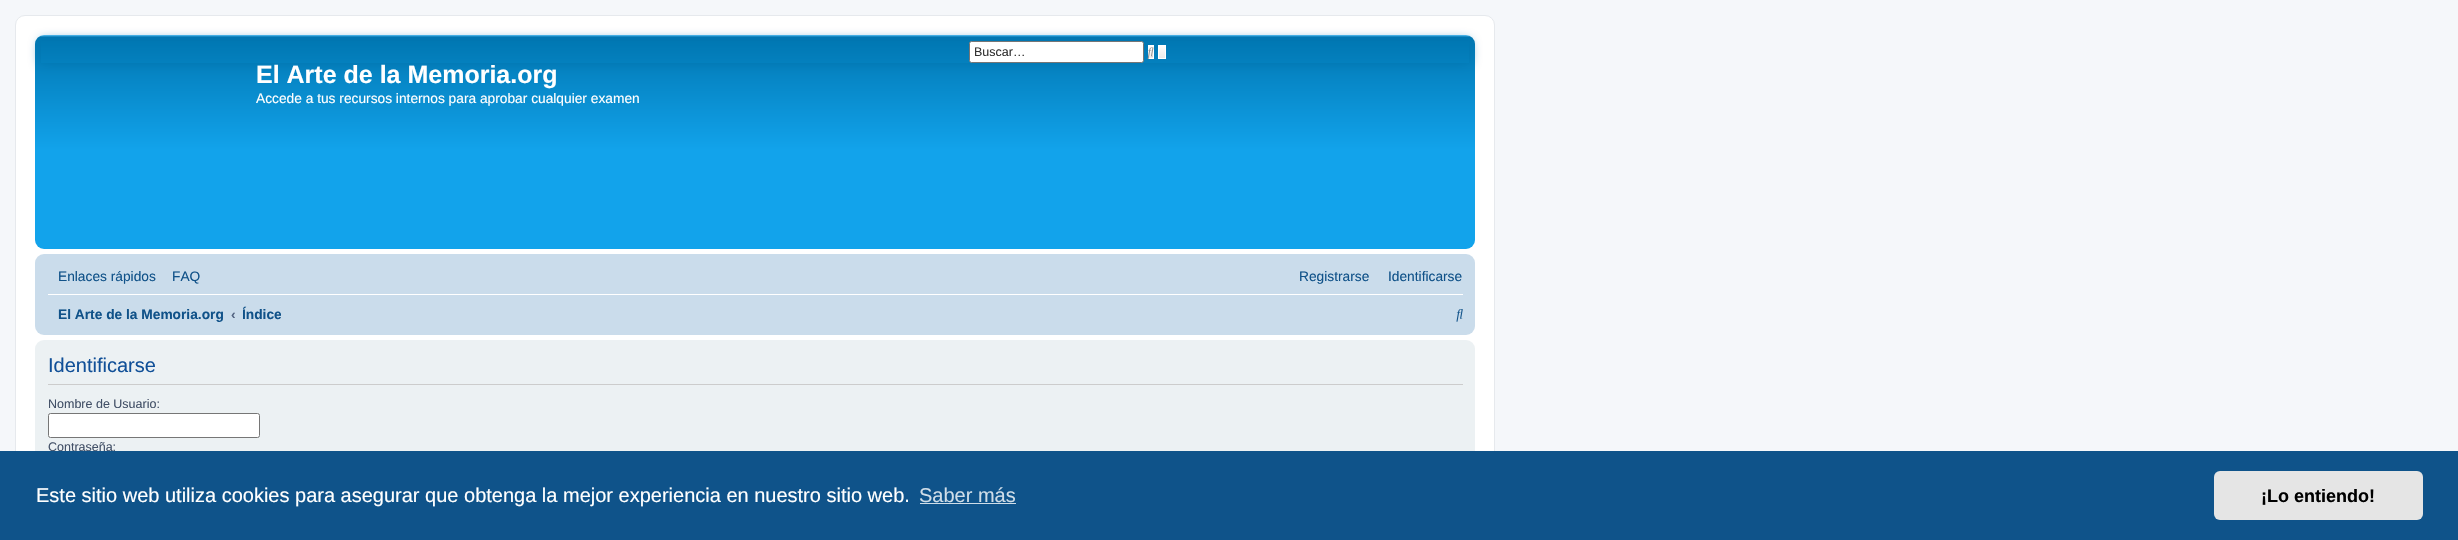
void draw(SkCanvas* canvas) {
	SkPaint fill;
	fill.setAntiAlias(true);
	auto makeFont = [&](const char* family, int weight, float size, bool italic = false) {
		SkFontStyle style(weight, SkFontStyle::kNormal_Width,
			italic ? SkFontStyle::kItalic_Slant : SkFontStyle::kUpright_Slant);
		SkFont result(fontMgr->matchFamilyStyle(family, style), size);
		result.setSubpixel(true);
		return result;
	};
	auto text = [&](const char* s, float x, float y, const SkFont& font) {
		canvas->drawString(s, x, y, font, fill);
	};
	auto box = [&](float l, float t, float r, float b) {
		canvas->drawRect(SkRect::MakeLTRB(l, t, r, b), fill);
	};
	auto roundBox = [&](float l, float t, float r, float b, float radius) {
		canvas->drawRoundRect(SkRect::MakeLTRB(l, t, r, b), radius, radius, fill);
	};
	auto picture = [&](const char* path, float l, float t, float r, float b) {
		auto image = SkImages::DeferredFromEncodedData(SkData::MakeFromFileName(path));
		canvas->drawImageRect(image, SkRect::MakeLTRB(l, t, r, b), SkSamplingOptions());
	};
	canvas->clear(0xFFF5F7FA);
	fill.setColor(0xFFFFFFFF);
	canvas->drawRoundRect(SkRect::MakeLTRB(15.5f, 15.5f, 1494.5f, 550.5f), 9.5f, 9.5f, fill);
	fill.setStyle(SkPaint::kStroke_Style);
	fill.setStrokeWidth(1);
	fill.setColor(0xFFE6E9ED);
	canvas->drawRoundRect(SkRect::MakeLTRB(15.5f, 15.5f, 1494.5f, 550.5f), 9.5f, 9.5f, fill);
	fill.setStyle(SkPaint::kFill_Style);
	{
		const SkColor colors[] = {0xFF6ACEFF, 0xFF0076B1, 0xFF12A3EB, 0xFF12A3EB};
		const float stops[] = {0, 0.01f, 0.54f, 1};
		const SkPoint ends[] = {{755, 35}, {755, 249}};
		fill.setShader(SkGradientShader::MakeLinear(ends, colors, stops, 4, SkTileMode::kClamp));
		fill.setAlpha(255);
	}
	roundBox(35, 35, 1475, 249, 9);
	canvas->save();
	canvas->clipPath(SkPathBuilder(SkPathFillType::kEvenOdd).moveTo(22, 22).lineTo(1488, 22).lineTo(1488, 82).lineTo(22, 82).close().moveTo(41, 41).lineTo(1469, 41).lineTo(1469, 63).lineTo(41, 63).close().detach(), true);
	fill.setShader(nullptr);
	fill.setColor(0xFF0075B0);
	fill.setMaskFilter(SkMaskFilter::MakeBlur(kNormal_SkBlurStyle, 6));
	canvas->drawRect(SkRect::MakeLTRB(41, 41, 1469, 63), fill);
	fill.setMaskFilter(nullptr);
	canvas->restore();
	fill.setColor(0xFFFFFFFF);
	canvas->drawRoundRect(SkRect::MakeLTRB(969.5f, 41.5f, 1143.5f, 62.5f), 2, 2, fill);
	fill.setStyle(SkPaint::kStroke_Style);
	fill.setColor(0xFF767676);
	canvas->drawRoundRect(SkRect::MakeLTRB(969.5f, 41.5f, 1143.5f, 62.5f), 2, 2, fill);
	fill.setStyle(SkPaint::kFill_Style);
	{
		const SkColor colors[] = {0xFFFFFFFF, 0xFFE9E9E9};
		const float stops[] = {0, 1};
		const SkPoint ends[] = {{1151, 45}, {1151, 59}};
		fill.setShader(SkGradientShader::MakeLinear(ends, colors, stops, 2, SkTileMode::kClamp));
		fill.setAlpha(255);
	}
	box(1149, 45, 1153, 59);
	fill.setStyle(SkPaint::kStroke_Style);
	fill.setShader(nullptr);
	fill.setColor(0xFFFFFFFF);
	canvas->drawRect(SkRect::MakeLTRB(1148.5f, 45.5f, 1153.5f, 58.5f), fill);
	picture("image0.png", 1147, 47, 1154, 59);
	fill.setStyle(SkPaint::kFill_Style);
	{
		const SkColor colors[] = {0xFFFFFFFF, 0xFFE9E9E9};
		const float stops[] = {0, 1};
		const SkPoint ends[] = {{1162, 45}, {1162, 59}};
		fill.setShader(SkGradientShader::MakeLinear(ends, colors, stops, 2, SkTileMode::kClamp));
		fill.setAlpha(255);
	}
	box(1159, 45, 1165, 59);
	fill.setStyle(SkPaint::kStroke_Style);
	fill.setShader(nullptr);
	fill.setColor(0xFFFFFFFF);
	canvas->drawRect(SkRect::MakeLTRB(1158.5f, 45.5f, 1165.5f, 58.5f), fill);
	fill.setStyle(SkPaint::kFill_Style);
	fill.setColor(0xFFCADCEB);
	roundBox(35, 254, 1475, 335, 9);
	fill.setColor(0xFFFFFFFF);
	box(48, 294, 1463, 295);
	picture("image1.png", 1456, 309, 1463, 322);
	fill.setColor(0xFFECF1F3);
	roundBox(35, 340, 1475, 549, 9);
	fill.setColor(0xFFCCCCCC);
	box(48, 384, 1463, 385);
	fill.setColor(0xFFFFFFFF);
	canvas->drawRoundRect(SkRect::MakeLTRB(48.5f, 413.5f, 259.5f, 437.5f), 2, 2, fill);
	fill.setStyle(SkPaint::kStroke_Style);
	fill.setColor(0xFF767676);
	canvas->drawRoundRect(SkRect::MakeLTRB(48.5f, 413.5f, 259.5f, 437.5f), 2, 2, fill);
	auto font1 = makeFont("Liberation Sans", 400, 12.5f);
	fill.setStyle(SkPaint::kFill_Style);
	fill.setColor(0xFF333333);
	text("Buscar…", 974, 56, font1);
	auto font2 = makeFont("Liberation Sans", 700, 25);
	fill.setColor(0xFFFFFFFF);
	text("El Arte de la Memoria.org", 256, 83, font2);
	auto font3 = makeFont("Liberation Sans", 400, 13.75f);
	text("Accede a tus recursos internos para aprobar cualquier examen", 256, 103, font3);
	fill.setColor(0xFF105289);
	text("Enlaces rápidos", 58, 281, font3);
	text("FAQ", 172, 281, font3);
	text("Registrarse", 1299, 281, font3);
	text("Identificarse", 1388, 281, font3);
	auto font4 = makeFont("Liberation Sans", 700, 13.75f);
	text("El Arte de la Memoria.org", 58, 319, font4);
	fill.setColor(0xFF536482);
	text("‹", 231, 319, font4);
	canvas->save();
	canvas->clipRect(SkRect::MakeLTRB(243, 299, 281, 329));
	fill.setColor(0xFF105289);
	text("Índice", 242, 319, font4);
	canvas->restore();
	auto font5 = makeFont("Liberation Sans", 400, 20);
	fill.setColor(0xFF115098);
	text("Identificarse", 48, 372, font5);
	fill.setColor(0xFF425067);
	text("Nombre de Usuario:", 48, 408, font1);
	text("Contraseña:", 48, 451, font1);
	fill.setColor(0xFF0F538A);
	box(0, 451, 2458, 540);
	fill.setColor(0xFFFFFFFF);
	text("Este sitio web utiliza cookies para asegurar que obtenga la mejor experiencia en nuestro sitio web.", 36, 502, font5);
	fill.setColor(0xFFCFDDE8);
	text("Saber más", 919, 502, font5);
	box(920, 503, 1016, 504);
	fill.setColor(0xFFE5E5E5);
	roundBox(2214, 471, 2423, 520, 6);
	auto font6 = makeFont("Liberation Sans", 700, 18);
	fill.setColor(0xFF000000);
	text("¡Lo entiendo!", 2261, 502, font6);
}
